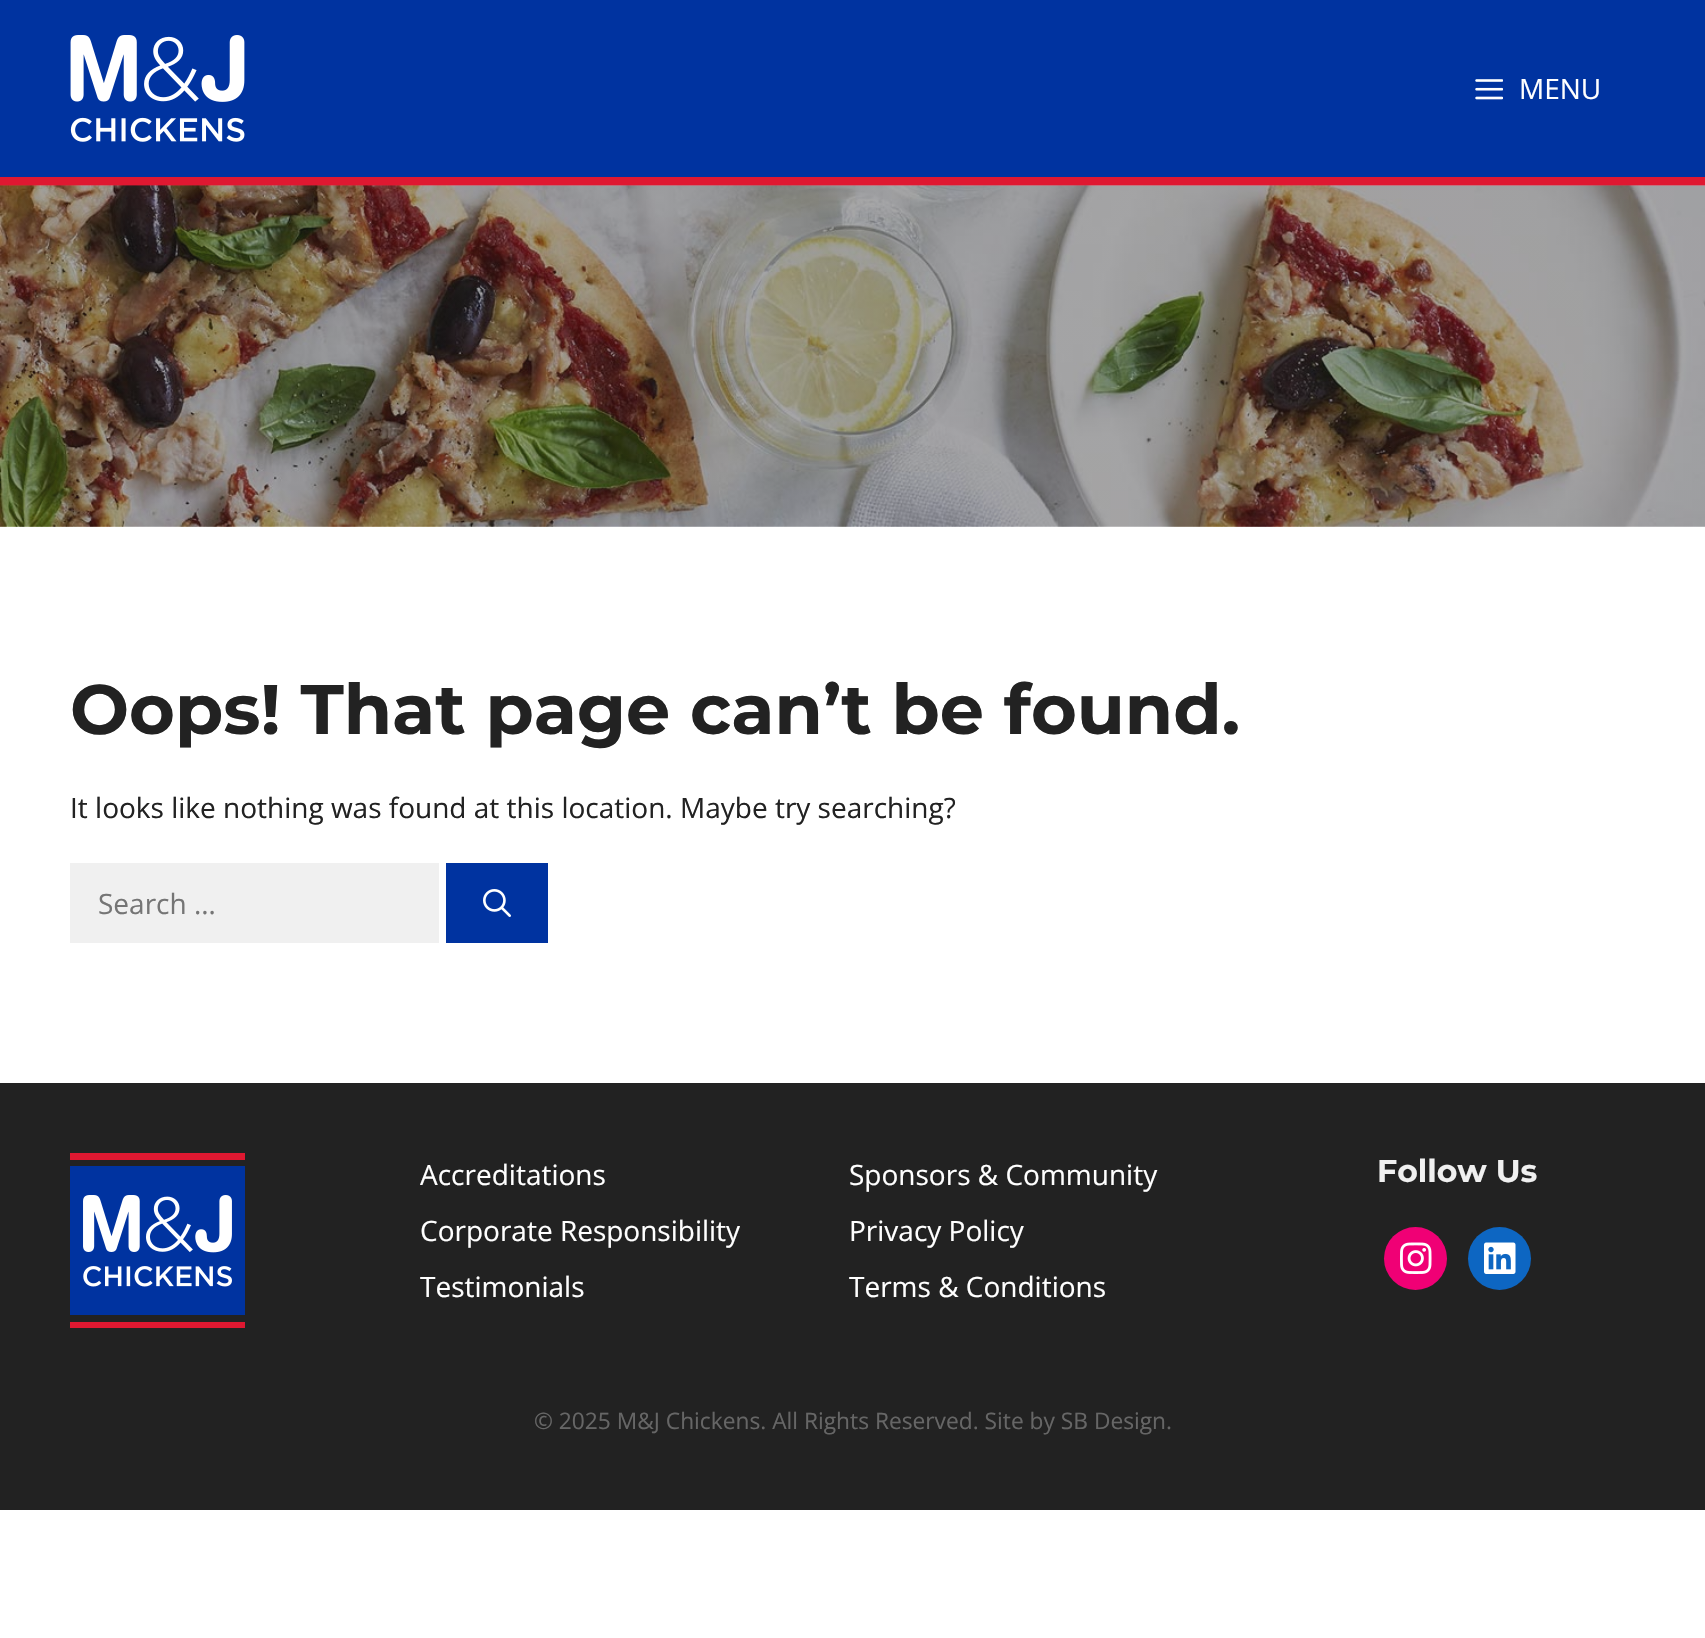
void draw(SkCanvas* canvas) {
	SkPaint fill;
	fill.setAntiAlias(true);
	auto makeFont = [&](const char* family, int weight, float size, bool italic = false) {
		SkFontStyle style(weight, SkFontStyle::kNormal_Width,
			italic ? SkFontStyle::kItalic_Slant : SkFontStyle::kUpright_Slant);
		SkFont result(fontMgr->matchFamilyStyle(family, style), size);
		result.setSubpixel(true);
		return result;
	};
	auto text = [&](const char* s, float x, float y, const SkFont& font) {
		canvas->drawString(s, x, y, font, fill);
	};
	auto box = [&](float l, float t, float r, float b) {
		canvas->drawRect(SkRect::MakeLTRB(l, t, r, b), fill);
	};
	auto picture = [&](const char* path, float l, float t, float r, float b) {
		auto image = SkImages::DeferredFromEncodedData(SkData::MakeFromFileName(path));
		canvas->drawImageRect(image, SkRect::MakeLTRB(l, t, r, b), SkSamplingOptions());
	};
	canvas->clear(0xFFFFFFFF);
	fill.setColor(0xFF0033A0);
	box(0, 0, 1705, 177);
	fill.setColor(0xFFDF1831);
	box(0, 177, 1705, 186);
	picture("image0.png", 70, 35, 245, 142);
	picture("image1.png", 1475, 79, 1503, 100);
	picture("image2.png", 0, 185, 1705, 527);
	fill.setColor(0xFFF0F0F0);
	box(70, 863, 439, 943);
	fill.setColor(0xFF0033A0);
	box(446, 863, 548, 943);
	picture("image3.png", 483, 889, 511, 917);
	fill.setColor(0xFF222222);
	box(0, 1083, 1705, 1510);
	picture("image4.png", 70, 1153, 245, 1328);
	fill.setColor(0xFFF00075);
	canvas->drawCircle(1415.5f, 1258.5f, 31.5f, fill);
	picture("image5.png", 1400, 1242, 1432, 1274);
	fill.setColor(0xFF0D66C2);
	canvas->drawCircle(1499.5f, 1258.5f, 31.5f, fill);
	picture("image6.png", 1484, 1242, 1516, 1274);
	auto font1 = makeFont("Open Sans", 400, 28);
	fill.setColor(0xFFFFFFFF);
	text("MENU", 1519, 99, font1);
	auto font2 = makeFont("Montserrat", 700, 70);
	fill.setColor(0xFF222222);
	text("Oops! That page can’t be found.", 70, 734, font2);
	text("It looks like nothing was found at this location. Maybe try searching?", 70, 818, font1);
	fill.setColor(0xFF757575);
	text("Search …", 98, 914, font1);
	fill.setColor(0xFFFFFFFF);
	text("Accreditations", 420, 1185, font1);
	text("Corporate Responsibility", 420, 1241, font1);
	text("Testimonials", 420, 1297, font1);
	text("Sponsors & Community", 849, 1185, font1);
	text("Privacy Policy", 849, 1241, font1);
	text("Terms & Conditions", 849, 1297, font1);
	auto font3 = makeFont("Montserrat", 700, 31.5f);
	fill.setColor(0xFFF0F0F0);
	text("Follow Us", 1377, 1182, font3);
	auto font4 = makeFont("Open Sans", 400, 22.75f);
	fill.setColor(0xFF666666);
	text("© 2025 M&J Chickens. All Rights Reserved. Site by SB Design.", 534, 1429, font4);
}
